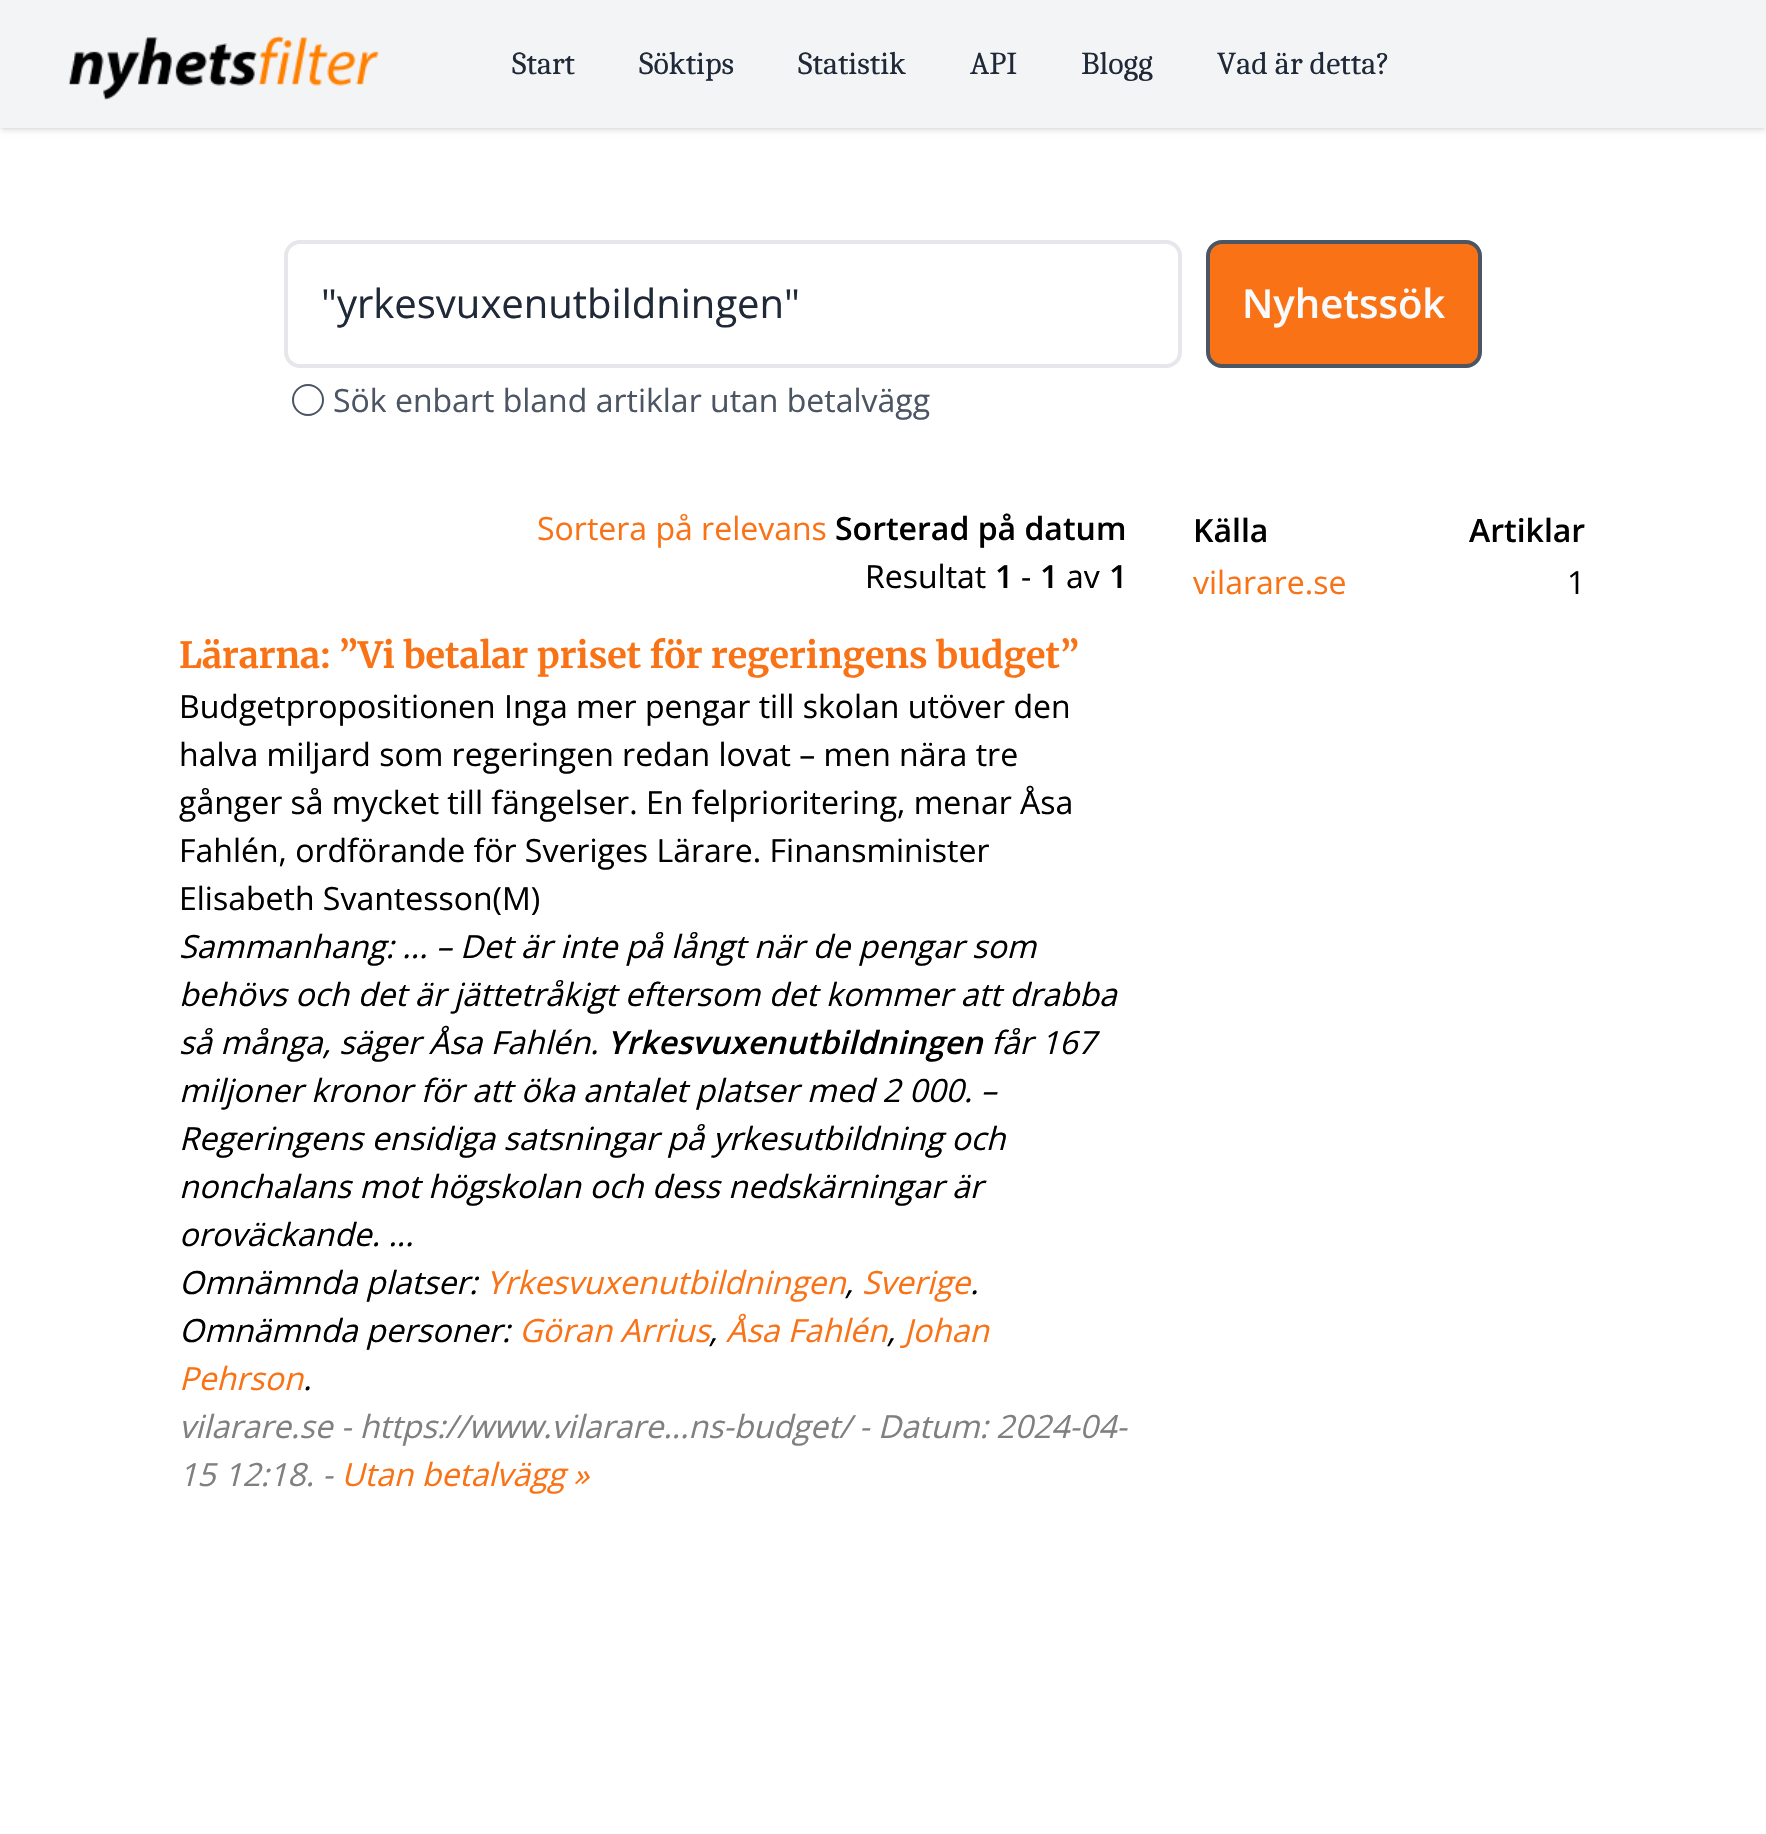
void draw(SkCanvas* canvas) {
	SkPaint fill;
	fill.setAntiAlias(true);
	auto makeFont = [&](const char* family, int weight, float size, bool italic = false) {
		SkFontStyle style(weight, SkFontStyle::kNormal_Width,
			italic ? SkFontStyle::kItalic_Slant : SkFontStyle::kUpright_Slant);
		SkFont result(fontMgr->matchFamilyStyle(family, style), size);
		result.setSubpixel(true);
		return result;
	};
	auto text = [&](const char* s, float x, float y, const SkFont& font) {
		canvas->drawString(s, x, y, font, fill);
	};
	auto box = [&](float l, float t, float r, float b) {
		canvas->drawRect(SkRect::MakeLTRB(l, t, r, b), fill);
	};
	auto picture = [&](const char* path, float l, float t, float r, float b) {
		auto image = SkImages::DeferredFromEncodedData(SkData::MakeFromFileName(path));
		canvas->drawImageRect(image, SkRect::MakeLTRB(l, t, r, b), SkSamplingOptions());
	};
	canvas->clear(0xFFFFFFFF);
	fill.setColor(0x1A000000);
	fill.setMaskFilter(SkMaskFilter::MakeBlur(kNormal_SkBlurStyle, 2));
	canvas->drawRect(SkRect::MakeLTRB(2, 4, 1764, 128), fill);
	fill.setMaskFilter(nullptr);
	fill.setMaskFilter(SkMaskFilter::MakeBlur(kNormal_SkBlurStyle, 3));
	canvas->drawRect(SkRect::MakeLTRB(0, 2, 1766, 130), fill);
	fill.setMaskFilter(nullptr);
	fill.setColor(0xFFF3F4F6);
	box(0, 0, 1766, 128);
	picture("image0.png", 68, 36, 379, 100);
	fill.setStyle(SkPaint::kStroke_Style);
	fill.setStrokeWidth(4);
	fill.setColor(0xFFE5E7EB);
	canvas->drawRoundRect(SkRect::MakeLTRB(286, 242, 1180, 366), 14, 14, fill);
	fill.setStyle(SkPaint::kFill_Style);
	fill.setColor(0xFFF97316);
	canvas->drawRoundRect(SkRect::MakeLTRB(1208, 242, 1480, 366), 14, 14, fill);
	fill.setStyle(SkPaint::kStroke_Style);
	fill.setColor(0xFF4B5563);
	canvas->drawRoundRect(SkRect::MakeLTRB(1208, 242, 1480, 366), 14, 14, fill);
	fill.setStrokeWidth(2);
	canvas->drawCircle(308, 400, 15, fill);
	auto font1 = makeFont("Caladea", 400, 32);
	fill.setStyle(SkPaint::kFill_Style);
	fill.setColor(0xFF1F2937);
	text("Start", 512, 74, font1);
	text("Söktips", 639, 74, font1);
	text("Statistik", 798, 74, font1);
	text("API", 970, 74, font1);
	text("Blogg", 1081, 74, font1);
	text("Vad är detta?", 1217, 74, font1);
	auto font2 = makeFont("Open Sans", 400, 40);
	text("\"yrkesvuxenutbildningen\"", 321, 318, font2);
	auto font3 = makeFont("Open Sans", 600, 40);
	fill.setColor(0xFFF9FAFB);
	text("Nyhetssök", 1242, 318, font3);
	auto font4 = makeFont("Open Sans", 400, 32);
	fill.setColor(0xFF4B5563);
	text("Sök enbart bland artiklar utan betalvägg", 333, 412, font4);
	fill.setColor(0xFFF97316);
	text("Sortera på relevans", 537, 540, font4);
	auto font5 = makeFont("Open Sans", 600, 32);
	fill.setColor(0xFF000000);
	text("Sorterad på datum", 835, 540, font5);
	text("Resultat", 865, 588, font4);
	text("1", 995, 588, font5);
	text("-", 1021, 588, font4);
	text("1", 1040, 588, font5);
	text("av", 1066, 588, font4);
	text("1", 1109, 588, font5);
	auto font6 = makeFont("Merriweather", 700, 36);
	fill.setColor(0xFFF97316);
	text("Lärarna: ”Vi betalar priset för regeringens budget”", 179, 668, font6);
	fill.setColor(0xFF000000);
	text("Budgetpropositionen Inga mer pengar till skolan utöver den", 179, 718, font4);
	text("halva miljard som regeringen redan lovat – men nära tre", 179, 766, font4);
	text("gånger så mycket till fängelser. En felprioritering, menar Åsa", 179, 814, font4);
	text("Fahlén, ordförande för Sveriges Lärare. Finansminister", 179, 862, font4);
	text("Elisabeth Svantesson(M)", 179, 910, font4);
	auto font7 = makeFont("Open Sans", 400, 32, true);
	text("Sammanhang: ... – Det är inte på långt när de pengar som", 179, 958, font7);
	text("behövs och det är jättetråkigt eftersom det kommer att drabba", 179, 1006, font7);
	text("så många, säger Åsa Fahlén.", 179, 1054, font7);
	auto font8 = makeFont("Open Sans", 600, 32, true);
	text("Yrkesvuxenutbildningen", 607, 1054, font8);
	text("får 167", 991, 1054, font7);
	text("miljoner kronor för att öka antalet platser med 2 000. –", 179, 1102, font7);
	text("Regeringens ensidiga satsningar på yrkesutbildning och", 179, 1150, font7);
	text("nonchalans mot högskolan och dess nedskärningar är", 179, 1198, font7);
	text("oroväckande. ...", 179, 1246, font7);
	text("Omnämnda platser:", 179, 1294, font7);
	fill.setColor(0xFFF97316);
	text("Yrkesvuxenutbildningen", 486, 1294, font7);
	fill.setColor(0xFF000000);
	text(",", 845, 1294, font7);
	fill.setColor(0xFFF97316);
	text("Sverige", 862, 1294, font7);
	fill.setColor(0xFF000000);
	text(".", 970, 1294, font7);
	text("Omnämnda personer:", 179, 1342, font7);
	fill.setColor(0xFFF97316);
	text("Göran Arrius", 519, 1342, font7);
	fill.setColor(0xFF000000);
	text(",", 709, 1342, font7);
	fill.setColor(0xFFF97316);
	text("Åsa Fahlén", 726, 1342, font7);
	fill.setColor(0xFF000000);
	text(",", 887, 1342, font7);
	fill.setColor(0xFFF97316);
	text("Johan", 904, 1342, font7);
	text("Pehrson", 179, 1390, font7);
	fill.setColor(0xFF000000);
	text(".", 303, 1390, font7);
	fill.setColor(0xFF808080);
	text("vilarare.se - https://www.vilarare...ns-budget/ - Datum: 2024-04-", 179, 1438, font7);
	text("15 12:18. -", 179, 1486, font7);
	fill.setColor(0xFFF97316);
	text("Utan betalvägg »", 341, 1486, font7);
	fill.setColor(0xFF000000);
	text("Källa", 1193, 542, font5);
	text("Artiklar", 1469, 542, font5);
	fill.setColor(0xFFF97316);
	text("vilarare.se", 1193, 594, font4);
	fill.setColor(0xFF000000);
	text("1", 1567, 594, font4);
}
